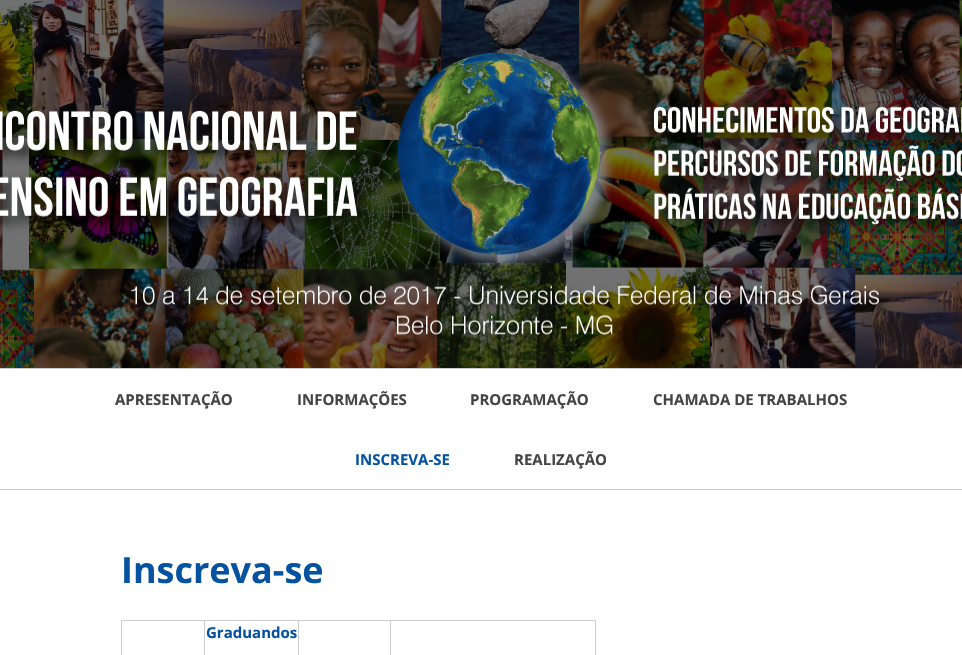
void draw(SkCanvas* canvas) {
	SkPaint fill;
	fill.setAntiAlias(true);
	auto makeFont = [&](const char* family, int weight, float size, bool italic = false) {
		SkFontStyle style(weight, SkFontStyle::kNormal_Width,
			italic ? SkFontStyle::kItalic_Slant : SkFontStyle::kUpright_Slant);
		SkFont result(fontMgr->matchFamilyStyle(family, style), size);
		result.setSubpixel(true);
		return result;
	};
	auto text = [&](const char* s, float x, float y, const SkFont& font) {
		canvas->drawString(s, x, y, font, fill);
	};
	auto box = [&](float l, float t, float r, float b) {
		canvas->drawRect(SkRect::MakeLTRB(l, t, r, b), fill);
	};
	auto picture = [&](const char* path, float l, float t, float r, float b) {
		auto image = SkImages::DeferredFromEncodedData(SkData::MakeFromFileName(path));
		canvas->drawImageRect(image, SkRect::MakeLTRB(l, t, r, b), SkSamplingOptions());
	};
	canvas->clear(0xFFFFFFFF);
	picture("image0.png", 0, 0, 962, 368);
	fill.setColor(0xFFCCCCCC);
	box(0, 368, 962, 369);
	box(0, 489, 962, 490);
	box(121, 620, 596, 621);
	box(595, 620, 596, 655);
	box(121, 620, 122, 655);
	box(204, 620, 205, 655);
	box(298, 620, 299, 655);
	box(390, 620, 391, 655);
	auto font1 = makeFont("Open Sans", 400, 36);
	fill.setColor(0xFF333333);
	text(".", 476, 143, font1);
	auto font2 = makeFont("Open Sans", 700, 15);
	fill.setColor(0xFF454545);
	text("APRESENTAÇÃO", 115, 405, font2);
	text("INFORMAÇÕES", 297, 405, font2);
	text("PROGRAMAÇÃO", 470, 405, font2);
	text("CHAMADA DE TRABALHOS", 653, 405, font2);
	fill.setColor(0xFF0553A0);
	text("INSCREVA-SE", 355, 465, font2);
	fill.setColor(0xFF454545);
	text("REALIZAÇÃO", 514, 465, font2);
	auto font3 = makeFont("Open Sans", 700, 36);
	fill.setColor(0xFF0553A0);
	text("Inscreva-se", 121, 583, font3);
	text("Graduandos", 206, 638, font2);
}
